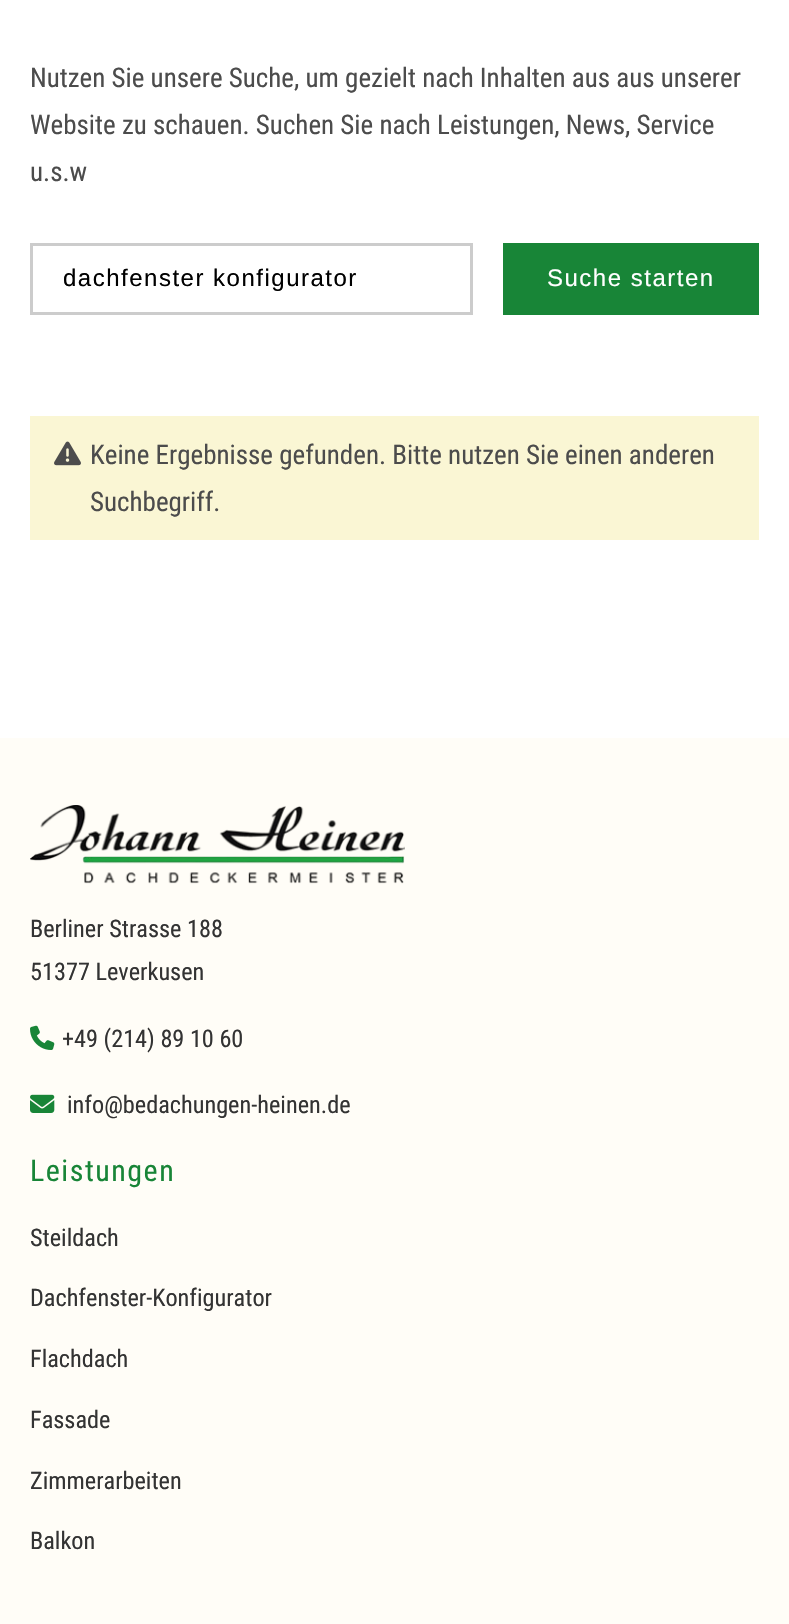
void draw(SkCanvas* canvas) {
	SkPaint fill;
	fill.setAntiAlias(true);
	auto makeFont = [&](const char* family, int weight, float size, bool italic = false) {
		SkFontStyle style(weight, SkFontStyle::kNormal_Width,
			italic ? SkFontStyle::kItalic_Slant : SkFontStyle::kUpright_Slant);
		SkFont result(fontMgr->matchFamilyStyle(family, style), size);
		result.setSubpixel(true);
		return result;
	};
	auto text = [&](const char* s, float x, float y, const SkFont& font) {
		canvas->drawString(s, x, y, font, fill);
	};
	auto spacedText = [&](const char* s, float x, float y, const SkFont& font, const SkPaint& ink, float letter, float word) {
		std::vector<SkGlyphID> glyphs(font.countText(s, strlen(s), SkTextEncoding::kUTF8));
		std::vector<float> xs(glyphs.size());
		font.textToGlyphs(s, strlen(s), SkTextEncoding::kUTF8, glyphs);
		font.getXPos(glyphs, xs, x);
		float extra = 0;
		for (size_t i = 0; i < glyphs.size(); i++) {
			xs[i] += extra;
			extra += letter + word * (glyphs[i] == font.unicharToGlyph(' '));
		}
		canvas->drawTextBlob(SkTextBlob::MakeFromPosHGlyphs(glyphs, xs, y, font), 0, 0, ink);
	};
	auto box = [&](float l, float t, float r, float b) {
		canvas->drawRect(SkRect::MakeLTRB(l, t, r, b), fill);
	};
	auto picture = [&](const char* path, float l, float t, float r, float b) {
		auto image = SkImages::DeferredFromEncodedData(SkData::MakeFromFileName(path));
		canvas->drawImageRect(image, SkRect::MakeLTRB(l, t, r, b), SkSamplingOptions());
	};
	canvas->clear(0xFFFFFFFF);
	fill.setStyle(SkPaint::kStroke_Style);
	fill.setStrokeWidth(3);
	fill.setColor(0xFFCCCCCC);
	canvas->drawRect(SkRect::MakeLTRB(31.5f, 244.5f, 471.5f, 313.5f), fill);
	fill.setStyle(SkPaint::kFill_Style);
	fill.setColor(0xFF188537);
	box(503, 243, 759, 315);
	fill.setColor(0xFFFAF6D4);
	box(30, 416, 759, 540);
	picture("image0.png", 54, 441, 81, 466);
	fill.setColor(0xFFFFFDF7);
	box(0, 738, 789, 1624);
	picture("image1.png", 30, 805, 405, 884);
	picture("image2.png", 30, 1025, 55, 1050);
	picture("image3.png", 30, 1094, 55, 1113);
	auto font1 = makeFont("Roboto Condensed", 400, 27);
	fill.setColor(0xFF4C4C4C);
	text("Nutzen Sie unsere Suche, um gezielt nach Inhalten aus aus unserer", 30, 87, font1);
	text("Website zu schauen. Suchen Sie nach Leistungen, News, Service", 30, 134, font1);
	text("u.s.w", 30, 181, font1);
	auto font2 = makeFont("Liberation Sans", 400, 24);
	fill.setColor(0xFF000000);
	spacedText("dachfenster konfigurator", 63, 286, font2, fill, 1.5f, 0);
	fill.setColor(0xFFFFFFFF);
	spacedText("Suche starten", 547, 286, font2, fill, 1.5f, 0);
	fill.setColor(0xFF4C4C4C);
	text("Keine Ergebnisse gefunden. Bitte nutzen Sie einen anderen", 90, 464, font1);
	text("Suchbegriff.", 90, 511, font1);
	auto font3 = makeFont("Roboto Condensed", 400, 24.25f);
	fill.setColor(0xFF333333);
	text("Berliner Strasse 188", 30, 937, font3);
	text("51377 Leverkusen", 30, 980, font3);
	text("+49 (214) 89 10 60", 62, 1047, font3);
	text("info@bedachungen-heinen.de", 67, 1113, font3);
	auto font4 = makeFont("Roboto Condensed", 400, 30);
	fill.setColor(0xFF188537);
	spacedText("Leistungen", 30, 1181, font4, fill, 1.5f, 0);
	fill.setColor(0xFF333333);
	text("Steildach", 30, 1246, font3);
	text("Dachfenster-Konfigurator", 30, 1306, font3);
	text("Flachdach", 30, 1367, font3);
	text("Fassade", 30, 1428, font3);
	text("Zimmerarbeiten", 30, 1489, font3);
	text("Balkon", 30, 1549, font3);
}
